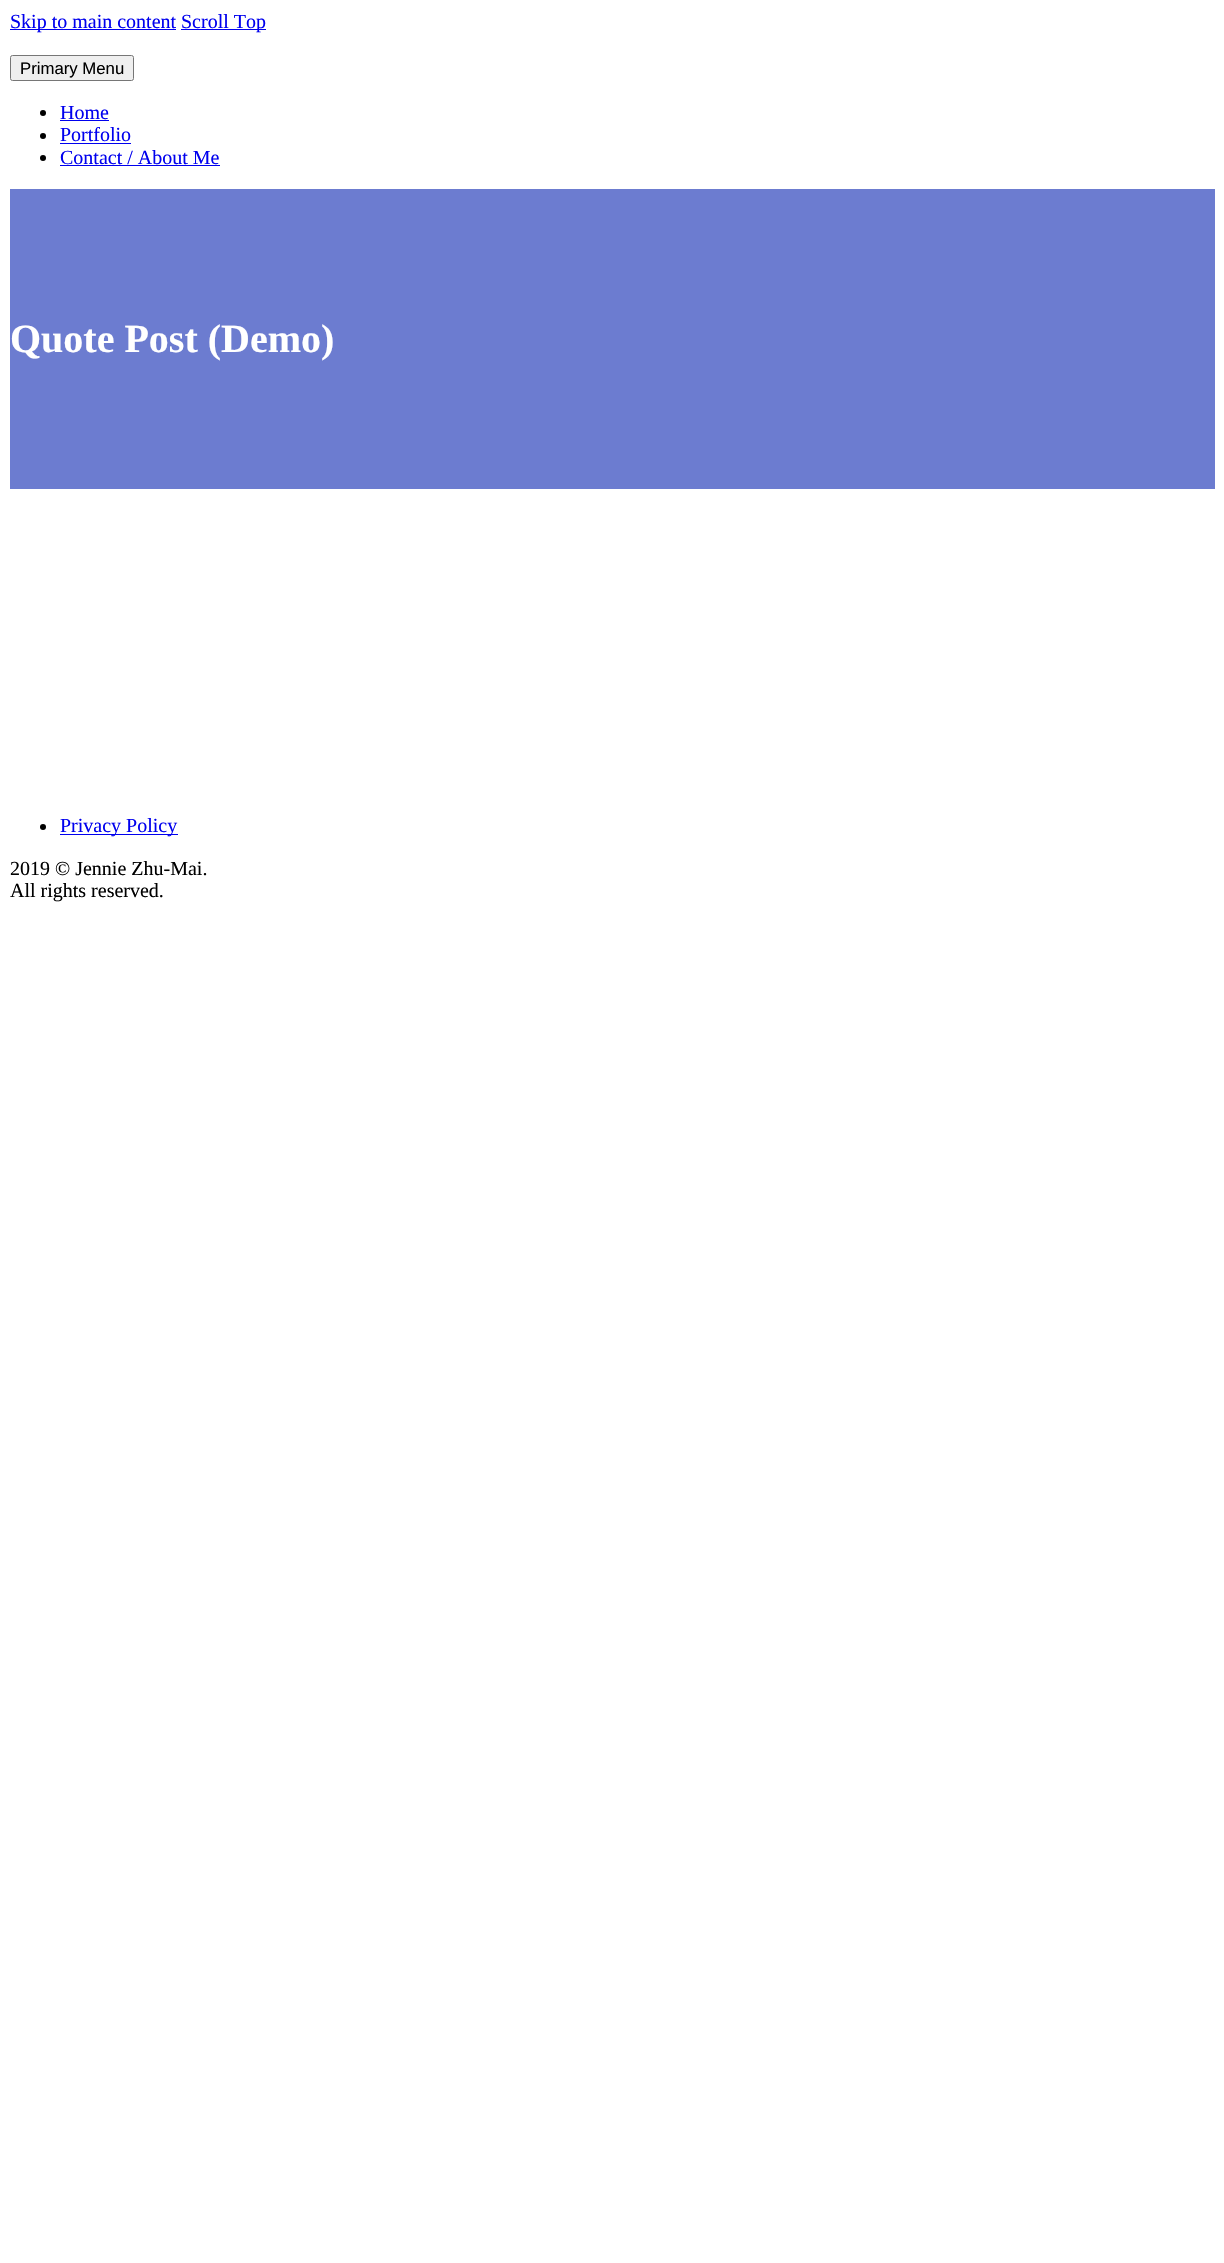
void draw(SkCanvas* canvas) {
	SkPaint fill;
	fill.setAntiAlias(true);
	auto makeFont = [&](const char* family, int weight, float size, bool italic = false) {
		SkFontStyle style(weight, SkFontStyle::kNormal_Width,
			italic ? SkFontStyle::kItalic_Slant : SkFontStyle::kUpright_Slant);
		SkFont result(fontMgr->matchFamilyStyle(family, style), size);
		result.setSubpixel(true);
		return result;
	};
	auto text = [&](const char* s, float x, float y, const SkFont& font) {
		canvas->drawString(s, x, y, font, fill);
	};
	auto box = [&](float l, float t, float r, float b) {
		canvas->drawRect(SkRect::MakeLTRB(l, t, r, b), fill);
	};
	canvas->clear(0xFFFFFFFF);
	fill.setColor(0xFF0000EE);
	box(10, 29, 176, 30);
	box(181, 29, 266, 30);
	fill.setColor(0xFFEFEFEF);
	canvas->drawRoundRect(SkRect::MakeLTRB(10.5f, 55.5f, 133.5f, 80.5f), 2, 2, fill);
	fill.setStyle(SkPaint::kStroke_Style);
	fill.setStrokeWidth(1);
	fill.setColor(0xFF767676);
	canvas->drawRoundRect(SkRect::MakeLTRB(10.5f, 55.5f, 133.5f, 80.5f), 2, 2, fill);
	fill.setStyle(SkPaint::kFill_Style);
	fill.setColor(0xFF000000);
	canvas->drawCircle(43, 113, 3, fill);
	fill.setColor(0xFF0000EE);
	box(60, 120, 109, 121);
	fill.setColor(0xFF000000);
	canvas->drawCircle(43, 136, 3, fill);
	fill.setColor(0xFF0000EE);
	box(60, 143, 131, 144);
	fill.setColor(0xFF000000);
	canvas->drawCircle(43, 158, 3, fill);
	fill.setColor(0xFF0000EE);
	box(60, 165, 220, 166);
	fill.setColor(0xFF6C7CD0);
	box(10, 189, 1215, 489);
	fill.setColor(0xFF000000);
	canvas->drawCircle(43, 827, 3, fill);
	fill.setColor(0xFF0000EE);
	box(60, 834, 178, 835);
	auto font1 = makeFont("Liberation Serif", 400, 20);
	text("Skip to main content", 10, 28, font1);
	text("Scroll Top", 181, 28, font1);
	auto font2 = makeFont("Liberation Sans", 400, 16.75f);
	fill.setColor(0xFF000000);
	text("Primary Menu", 20, 74, font2);
	fill.setColor(0xFF0000EE);
	text("Home", 60, 119, font1);
	text("Portfolio", 60, 141, font1);
	text("Contact / About Me", 60, 164, font1);
	auto font3 = makeFont("Liberation Serif", 700, 40);
	fill.setColor(0xFFFFFFFF);
	text("Quote Post (Demo)", 10, 352, font3);
	fill.setColor(0xFF0000EE);
	text("Privacy Policy", 60, 832, font1);
	fill.setColor(0xFF000000);
	text("2019 © Jennie Zhu-Mai.", 10, 875, font1);
	text("All rights reserved.", 10, 897, font1);
}
